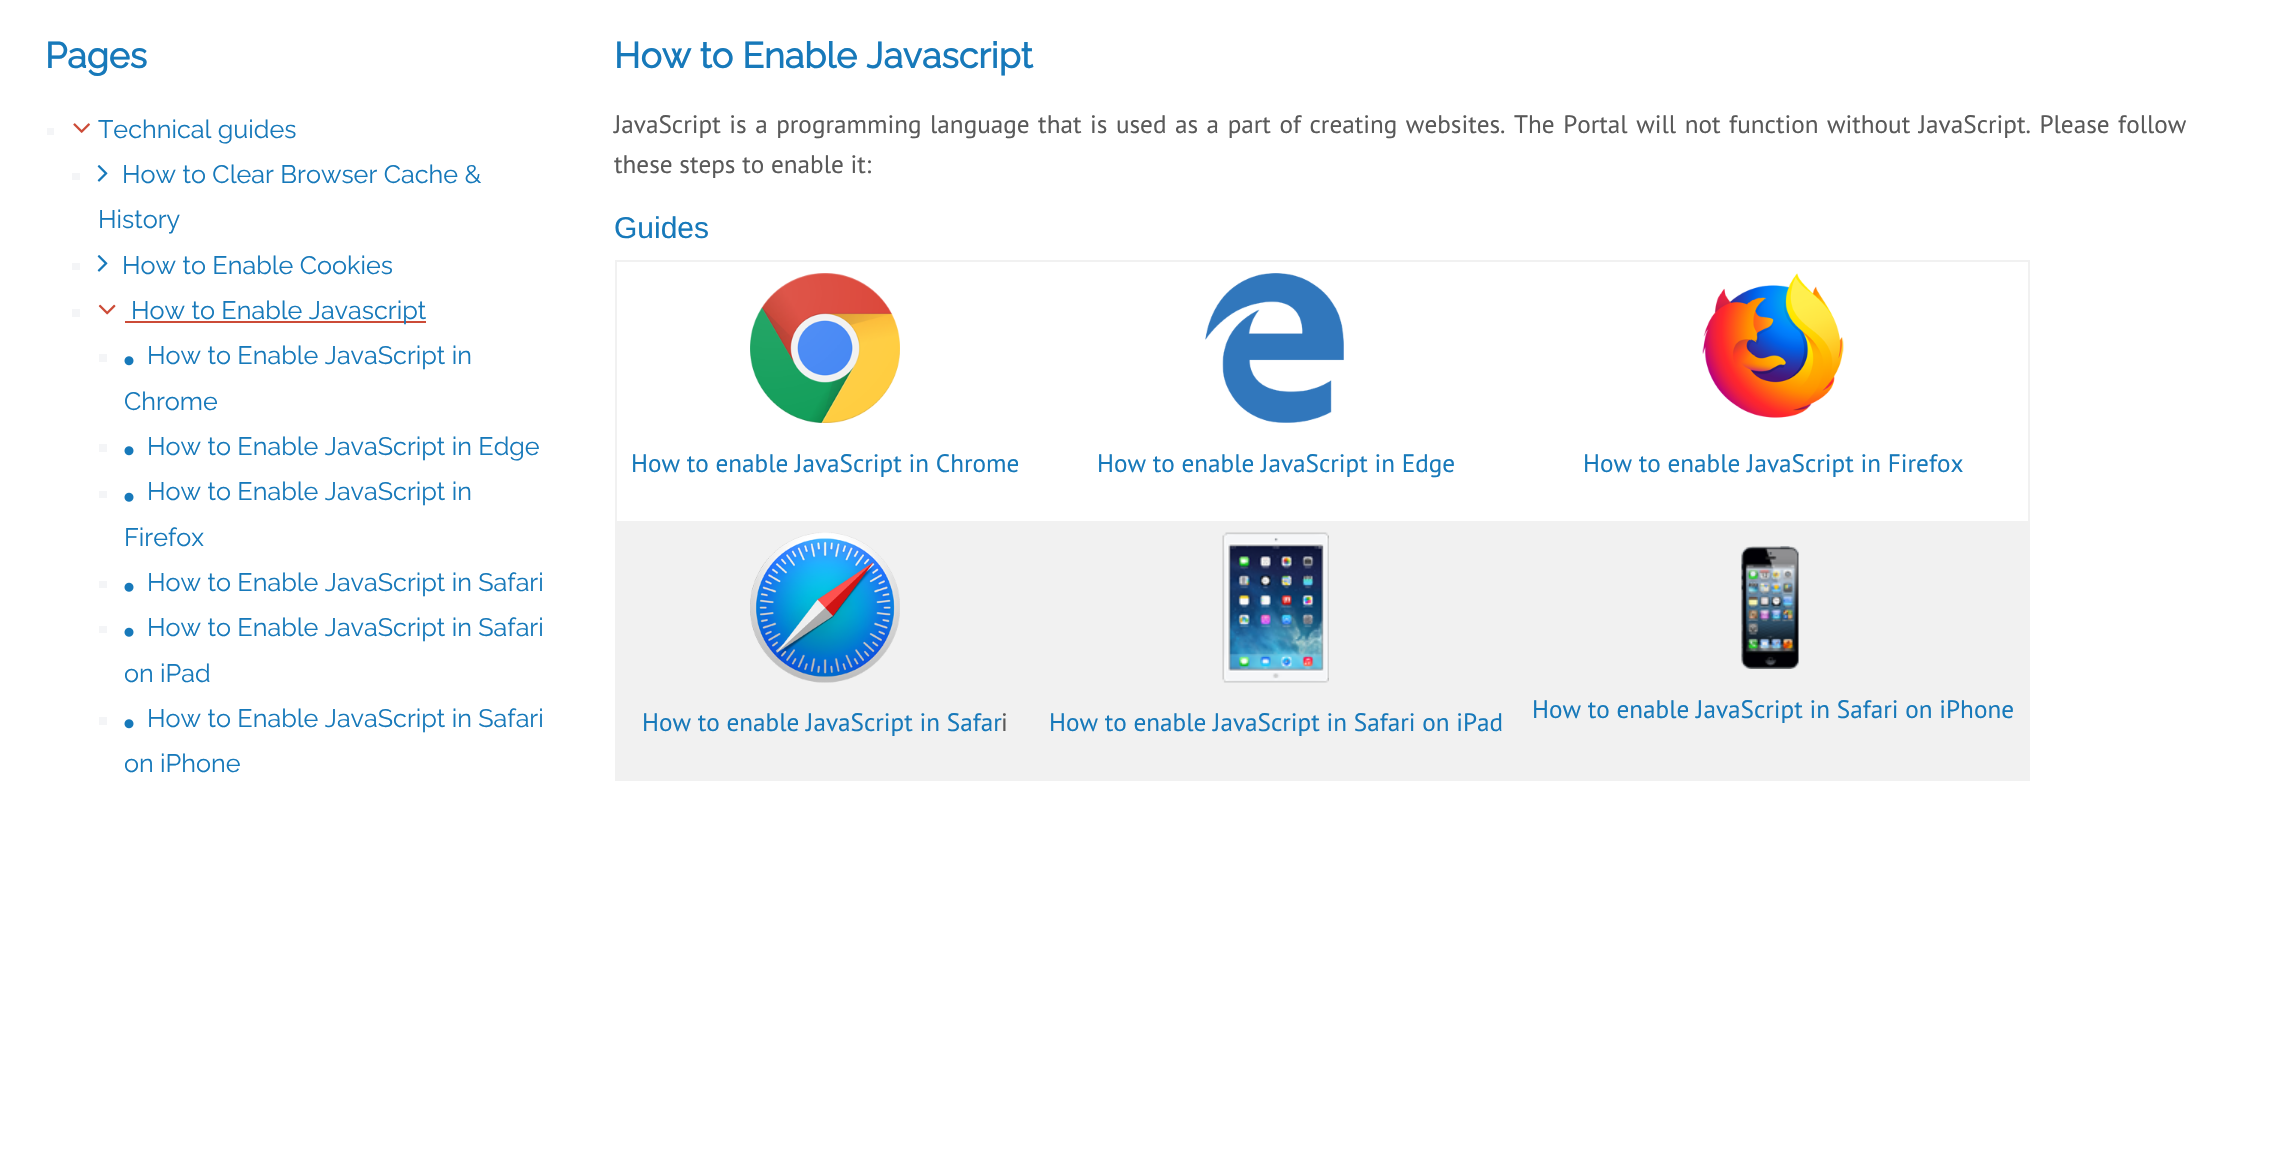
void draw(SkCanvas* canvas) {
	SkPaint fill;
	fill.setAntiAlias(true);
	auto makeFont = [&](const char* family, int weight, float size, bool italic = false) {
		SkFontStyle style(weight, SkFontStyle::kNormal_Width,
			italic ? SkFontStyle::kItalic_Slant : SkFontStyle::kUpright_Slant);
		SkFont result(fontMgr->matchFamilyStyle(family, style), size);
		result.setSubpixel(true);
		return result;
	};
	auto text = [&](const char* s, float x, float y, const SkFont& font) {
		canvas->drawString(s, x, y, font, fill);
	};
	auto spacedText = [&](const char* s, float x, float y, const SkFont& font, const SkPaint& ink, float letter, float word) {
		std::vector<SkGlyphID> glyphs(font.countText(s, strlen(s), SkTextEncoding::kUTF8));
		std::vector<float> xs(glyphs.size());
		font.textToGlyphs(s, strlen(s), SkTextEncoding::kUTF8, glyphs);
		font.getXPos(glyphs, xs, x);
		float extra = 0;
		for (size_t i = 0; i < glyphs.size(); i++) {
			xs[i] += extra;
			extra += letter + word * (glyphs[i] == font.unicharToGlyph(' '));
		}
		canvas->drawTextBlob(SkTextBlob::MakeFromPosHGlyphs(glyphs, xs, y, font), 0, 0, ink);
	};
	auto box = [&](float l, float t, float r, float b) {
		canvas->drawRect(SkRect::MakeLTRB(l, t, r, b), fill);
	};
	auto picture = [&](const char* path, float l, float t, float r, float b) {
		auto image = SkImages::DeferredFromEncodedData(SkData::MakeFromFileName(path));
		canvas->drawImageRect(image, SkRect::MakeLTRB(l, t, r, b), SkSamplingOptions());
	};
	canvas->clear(0xFFFFFFFF);
	fill.setColor(0xFFF4F5F7);
	box(47, 128, 54, 135);
	picture("image0.png", 73, 123, 90, 133);
	box(72, 173, 80, 180);
	picture("image1.png", 97, 165, 108, 182);
	box(72, 263, 80, 270);
	picture("image1.png", 97, 255, 108, 272);
	box(72, 309, 80, 317);
	picture("image2.png", 98, 304, 116, 315);
	fill.setColor(0xFFCC4B37);
	box(125, 321, 426, 323);
	fill.setColor(0xFFF4F5F7);
	box(99, 354, 107, 362);
	picture("image3.png", 124, 356, 134, 366);
	box(99, 444, 107, 452);
	picture("image3.png", 124, 446, 134, 456);
	box(99, 491, 107, 498);
	picture("image4.png", 124, 492, 134, 502);
	box(99, 581, 107, 588);
	picture("image4.png", 124, 582, 134, 592);
	box(99, 626, 107, 633);
	picture("image4.png", 124, 627, 134, 637);
	box(99, 717, 107, 725);
	picture("image3.png", 124, 719, 134, 729);
	fill.setColor(0xFFF1F1F1);
	box(615, 260, 2030, 262);
	box(2028, 260, 2030, 780);
	box(615, 779, 2030, 781);
	box(615, 260, 617, 780);
	picture("image5.png", 750, 273, 900, 423);
	picture("image6.png", 1205, 273, 1344, 423);
	picture("image7.png", 1702, 273, 1844, 418);
	box(617, 521, 2028, 779);
	picture("image8.png", 750, 532, 900, 683);
	picture("image9.png", 1222, 532, 1329, 683);
	picture("image10.png", 1741, 546, 1799, 669);
	auto font1 = makeFont("Raleway", 700, 35.75f);
	fill.setColor(0xFF1779BA);
	text("Pages", 45, 68, font1);
	auto font2 = makeFont("Raleway", 100, 25.2f);
	text("Technical guides", 98, 138, font2);
	text("How to Clear Browser Cache &", 122, 183, font2);
	text("History", 98, 228, font2);
	text("How to Enable Cookies", 122, 274, font2);
	text("How to Enable Javascript", 131, 319, font2);
	text("How to Enable JavaScript in", 147, 364, font2);
	text("Chrome", 124, 410, font2);
	text("How to Enable JavaScript in Edge", 147, 455, font2);
	text("How to Enable JavaScript in", 147, 500, font2);
	text("Firefox", 124, 546, font2);
	text("How to Enable JavaScript in Safari", 147, 591, font2);
	text("How to Enable JavaScript in Safari", 147, 636, font2);
	text("on iPad", 124, 682, font2);
	text("How to Enable JavaScript in Safari", 147, 727, font2);
	text("on iPhone", 124, 772, font2);
	text("How to Enable Javascript", 614, 68, font1);
	auto font3 = makeFont("PT Sans", 400, 25.2f);
	fill.setColor(0xFF595959);
	spacedText("JavaScript is a programming language that is used as a part of creating websites. The Portal will not function without JavaScript. Please follow", 614, 133, font3, fill, 0, 1.8f);
	text("these steps to enable it:", 614, 173, font3);
	auto font4 = makeFont("Liberation Sans", 400, 30);
	fill.setColor(0xFF1779BA);
	text("Guides", 614, 238, font4);
	text("How to enable JavaScript in Chrome", 631, 472, font3);
	text("How to enable JavaScript in Edge", 1097, 472, font3);
	text("How to enable JavaScript in Firefox", 1583, 472, font3);
	text("How to enable JavaScript in Safar", 642, 731, font3);
	fill.setColor(0xFF595959);
	text("i", 1001, 731, font3);
	fill.setColor(0xFF1779BA);
	text("How to enable JavaScript in Safari on iPad", 1049, 731, font3);
	text("How to enable JavaScript in Safari on iPhone", 1532, 718, font3);
}
